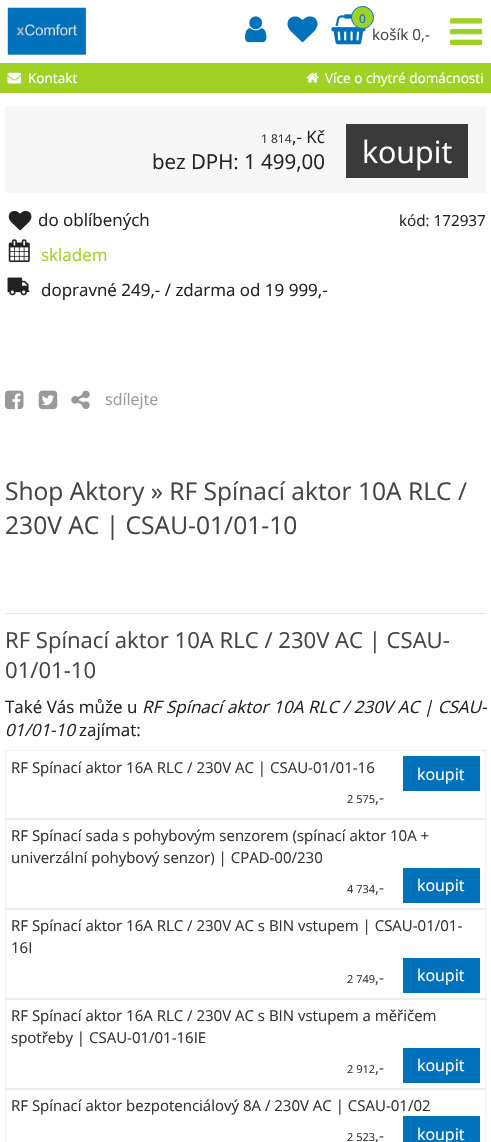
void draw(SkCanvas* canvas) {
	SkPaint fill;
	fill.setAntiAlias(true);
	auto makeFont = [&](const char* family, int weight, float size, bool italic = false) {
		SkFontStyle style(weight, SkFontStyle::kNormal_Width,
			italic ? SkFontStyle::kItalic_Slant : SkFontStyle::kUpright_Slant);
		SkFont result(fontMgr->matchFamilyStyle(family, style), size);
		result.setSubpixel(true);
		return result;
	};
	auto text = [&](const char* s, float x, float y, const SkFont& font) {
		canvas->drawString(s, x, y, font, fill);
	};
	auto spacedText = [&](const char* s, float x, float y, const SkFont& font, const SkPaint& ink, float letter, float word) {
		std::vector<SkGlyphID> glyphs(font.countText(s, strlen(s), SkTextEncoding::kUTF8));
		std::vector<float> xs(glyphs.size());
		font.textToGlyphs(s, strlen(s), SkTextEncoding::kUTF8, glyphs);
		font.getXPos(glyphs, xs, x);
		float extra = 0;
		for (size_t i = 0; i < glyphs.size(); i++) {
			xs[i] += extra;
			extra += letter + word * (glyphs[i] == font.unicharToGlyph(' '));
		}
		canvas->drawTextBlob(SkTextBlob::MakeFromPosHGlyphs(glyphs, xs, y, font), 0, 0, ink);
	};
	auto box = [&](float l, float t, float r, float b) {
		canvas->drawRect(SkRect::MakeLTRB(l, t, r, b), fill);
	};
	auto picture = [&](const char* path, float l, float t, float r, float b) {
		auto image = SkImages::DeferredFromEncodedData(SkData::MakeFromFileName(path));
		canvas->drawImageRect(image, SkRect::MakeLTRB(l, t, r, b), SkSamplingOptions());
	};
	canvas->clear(0xFFFFFFFF);
	picture("image0.png", 7, 7, 87, 55);
	picture("image1.png", 245, 16, 267, 43);
	picture("image2.png", 287, 16, 318, 43);
	picture("image3.png", 331, 14, 366, 45);
	picture("image4.png", 450, 18, 483, 45);
	fill.setColor(0xFFA0D225);
	box(0, 63, 491, 93);
	picture("image5.png", 7, 72, 22, 84);
	picture("image6.png", 306, 72, 319, 83);
	fill.setColor(0xFFF7F7F7);
	box(5, 106, 486, 193);
	fill.setColor(0xFF3A3A3A);
	box(346, 124, 468, 178);
	picture("image7.png", 8, 210, 32, 231);
	picture("image8.png", 8, 239, 30, 262);
	picture("image9.png", 7, 277, 30, 296);
	picture("image10.png", 5, 390, 24, 410);
	picture("image11.png", 38, 390, 58, 410);
	picture("image12.png", 71, 390, 90, 409);
	fill.setColor(0xFFE7E7E7);
	box(5, 613, 486, 614);
	fill.setStyle(SkPaint::kStroke_Style);
	fill.setStrokeWidth(1);
	fill.setColor(0xFFEEEEEE);
	canvas->drawRect(SkRect::MakeLTRB(5.5f, 750.5f, 485.5f, 818.5f), fill);
	fill.setStyle(SkPaint::kFill_Style);
	fill.setColor(0xFF0071BB);
	box(403, 756, 480, 791);
	fill.setStyle(SkPaint::kStroke_Style);
	fill.setColor(0xFFEEEEEE);
	canvas->drawRect(SkRect::MakeLTRB(5.5f, 819.5f, 485.5f, 908.5f), fill);
	fill.setStyle(SkPaint::kFill_Style);
	fill.setColor(0xFF0071BB);
	box(403, 868, 480, 903);
	fill.setStyle(SkPaint::kStroke_Style);
	fill.setColor(0xFFEEEEEE);
	canvas->drawRect(SkRect::MakeLTRB(5.5f, 909.5f, 485.5f, 998.5f), fill);
	fill.setStyle(SkPaint::kFill_Style);
	fill.setColor(0xFF0071BB);
	box(403, 958, 480, 993);
	fill.setStyle(SkPaint::kStroke_Style);
	fill.setColor(0xFFEEEEEE);
	canvas->drawRect(SkRect::MakeLTRB(5.5f, 999.5f, 485.5f, 1088.5f), fill);
	fill.setStyle(SkPaint::kFill_Style);
	fill.setColor(0xFF0071BB);
	box(403, 1048, 480, 1083);
	fill.setStyle(SkPaint::kStroke_Style);
	fill.setColor(0xFFEEEEEE);
	canvas->drawRect(SkRect::MakeLTRB(5.5f, 1089.5f, 485.5f, 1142.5f), fill);
	fill.setStyle(SkPaint::kFill_Style);
	fill.setColor(0xFF0071BB);
	box(403, 1116, 480, 1142);
	auto font1 = makeFont("Open Sans", 400, 15.25f);
	fill.setColor(0xFF444444);
	text("košík 0,-", 372, 40, font1);
	fill.setColor(0xFFA0D225);
	canvas->drawCircle(362.5f, 17.5f, 11, fill);
	fill.setStyle(SkPaint::kStroke_Style);
	fill.setColor(0xFF0071BB);
	canvas->drawCircle(362.5f, 17.5f, 11, fill);
	auto font2 = makeFont("Open Sans", 400, 12);
	fill.setStyle(SkPaint::kFill_Style);
	text("0", 359, 23, font2);
	auto font3 = makeFont("Open Sans", 400, 13.6f);
	fill.setColor(0xFFFFFFFF);
	text("Kontakt", 28, 83, font3);
	text("Více o chytré domácnosti", 325, 83, font3);
	fill.setColor(0xFF333333);
	text("1 814", 261, 143, font2);
	auto font4 = makeFont("Open Sans", 400, 17);
	fill.setColor(0xFF222222);
	text(",- Kč", 292, 143, font4);
	auto font5 = makeFont("Open Sans", 400, 30.5f);
	fill.setColor(0xFFFFFFFF);
	text("koupit", 362, 163, font5);
	auto font6 = makeFont("Open Sans", 400, 20.5f);
	fill.setColor(0xFF222222);
	text("bez DPH: 1 499,00", 152, 169, font6);
	text("do oblíbených", 38, 226, font4);
	text("kód: 172937", 399, 226, font1);
	fill.setColor(0xFFA0D225);
	text("skladem", 41, 261, font4);
	fill.setColor(0xFF222222);
	text("dopravné 249,- / zdarma od 19 999,-", 41, 296, font4);
	auto font7 = makeFont("Open Sans", 400, 16);
	fill.setColor(0xFF999999);
	text("sdílejte", 105, 405, font7);
	auto font8 = makeFont("Open Sans", 400, 24.6f);
	fill.setColor(0xFF444444);
	text("Shop Aktory » RF Spínací aktor 10A RLC /", 5, 500, font8);
	text("230V AC | CSAU-01/01-10", 5, 534, font8);
	auto font9 = makeFont("Open Sans", 400, 22.1f);
	text("RF Spínací aktor 10A RLC / 230V AC | CSAU-", 5, 648, font9);
	text("01/01-10", 5, 678, font9);
	fill.setColor(0xFF222222);
	text("Také Vás může u", 5, 713, font4);
	auto font10 = makeFont("Open Sans", 400, 17, true);
	spacedText("RF Spínací aktor 10A RLC / 230V AC | CSAU-", 142, 713, font10, fill, 0, 0.25f);
	text("01/01-10", 5, 736, font10);
	text("zajímat:", 79, 736, font4);
	auto font11 = makeFont("Open Sans", 400, 15);
	fill.setColor(0xFF333333);
	text("RF Spínací aktor 16A RLC / 230V AC | CSAU-01/01-16", 11, 773, font11);
	fill.setColor(0xFFFFFFFF);
	text("koupit", 417, 780, font7);
	auto font12 = makeFont("Open Sans", 400, 11);
	fill.setColor(0xFF333333);
	text("2 575", 347, 803, font12);
	fill.setColor(0xFF444444);
	text(",-", 375, 803, font1);
	fill.setColor(0xFF333333);
	text("RF Spínací sada s pohybovým senzorem (spínací aktor 10A +", 11, 841, font11);
	text("univerzální pohybový senzor) | CPAD-00/230", 11, 863, font11);
	text("4 734", 347, 893, font12);
	fill.setColor(0xFF444444);
	text(",-", 375, 893, font1);
	fill.setColor(0xFFFFFFFF);
	text("koupit", 417, 891, font7);
	fill.setColor(0xFF333333);
	text("RF Spínací aktor 16A RLC / 230V AC s BIN vstupem | CSAU-01/01-", 11, 931, font11);
	text("16I", 11, 953, font11);
	text("2 749", 347, 983, font12);
	fill.setColor(0xFF444444);
	text(",-", 375, 983, font1);
	fill.setColor(0xFFFFFFFF);
	text("koupit", 417, 981, font7);
	fill.setColor(0xFF333333);
	text("RF Spínací aktor 16A RLC / 230V AC s BIN vstupem a měřičem", 11, 1021, font11);
	text("spotřeby | CSAU-01/01-16IE", 11, 1043, font11);
	text("2 912", 347, 1073, font12);
	fill.setColor(0xFF444444);
	text(",-", 375, 1073, font1);
	fill.setColor(0xFFFFFFFF);
	text("koupit", 417, 1071, font7);
	fill.setColor(0xFF333333);
	text("RF Spínací aktor bezpotenciálový 8A / 230V AC | CSAU-01/02", 11, 1111, font11);
	text("2 523", 347, 1141, font12);
	fill.setColor(0xFF444444);
	text(",-", 375, 1141, font1);
	fill.setColor(0xFFFFFFFF);
	text("koupit", 417, 1140, font7);
}
